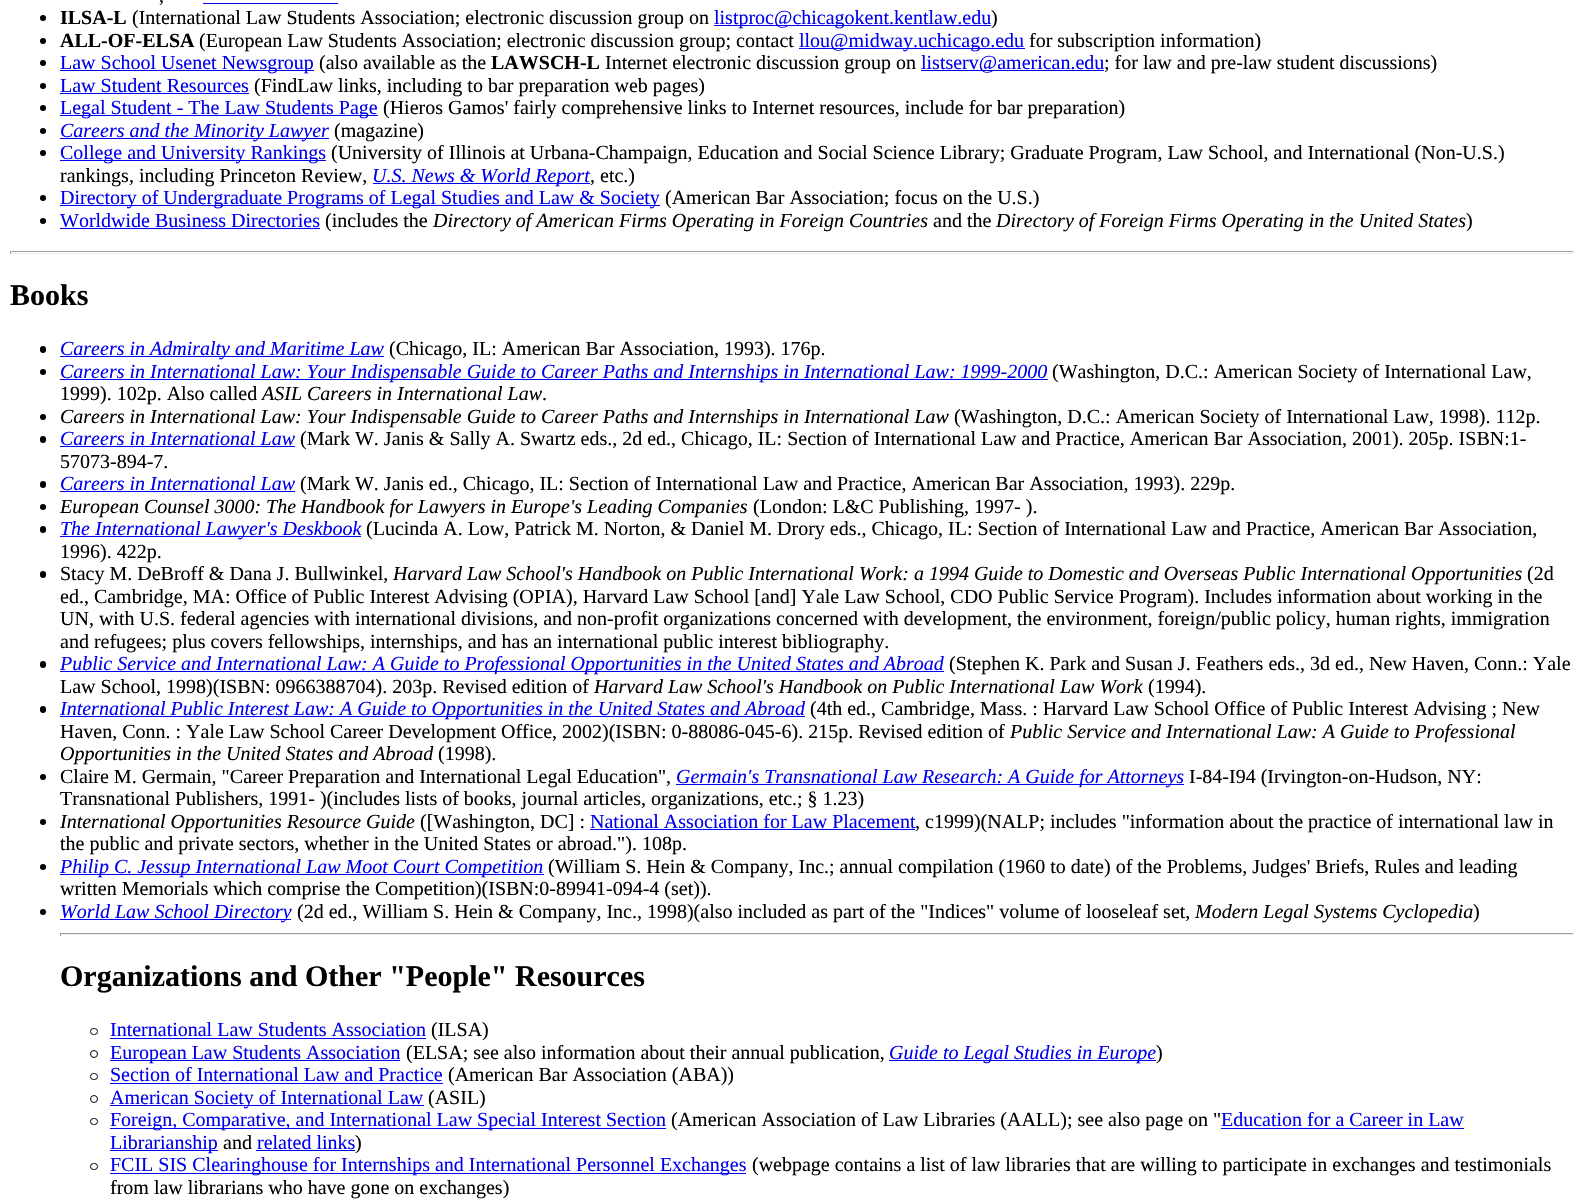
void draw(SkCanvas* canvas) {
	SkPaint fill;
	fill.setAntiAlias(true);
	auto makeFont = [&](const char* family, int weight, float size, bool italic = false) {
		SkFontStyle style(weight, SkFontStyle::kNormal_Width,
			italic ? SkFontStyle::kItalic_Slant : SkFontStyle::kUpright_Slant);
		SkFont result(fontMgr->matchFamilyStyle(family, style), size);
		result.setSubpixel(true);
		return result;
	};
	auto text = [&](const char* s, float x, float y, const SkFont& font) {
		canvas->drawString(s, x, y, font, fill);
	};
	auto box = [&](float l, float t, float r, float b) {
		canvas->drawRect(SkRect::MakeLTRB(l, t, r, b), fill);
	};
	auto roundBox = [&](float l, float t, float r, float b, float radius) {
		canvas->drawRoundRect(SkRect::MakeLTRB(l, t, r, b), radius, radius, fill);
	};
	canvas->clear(0xFFFFFFFF);
	fill.setColor(0xFF0000EE);
	box(203, 3, 338, 4);
	fill.setColor(0xFF000000);
	canvas->drawCircle(43, 18, 3, fill);
	fill.setColor(0xFF0000EE);
	box(714, 25, 991, 26);
	fill.setColor(0xFF000000);
	canvas->drawCircle(43, 41, 3, fill);
	fill.setColor(0xFF0000EE);
	box(799, 48, 1025, 49);
	fill.setColor(0xFF000000);
	canvas->drawCircle(43, 63, 3, fill);
	fill.setColor(0xFF0000EE);
	box(60, 70, 314, 71);
	box(921, 70, 1104, 71);
	fill.setColor(0xFF000000);
	canvas->drawCircle(43, 86, 3, fill);
	fill.setColor(0xFF0000EE);
	box(60, 93, 249, 94);
	fill.setColor(0xFF000000);
	canvas->drawCircle(43, 108, 3, fill);
	fill.setColor(0xFF0000EE);
	box(60, 115, 378, 116);
	fill.setColor(0xFF000000);
	canvas->drawCircle(43, 131, 3, fill);
	fill.setColor(0xFF0000EE);
	box(60, 138, 329, 139);
	fill.setColor(0xFF000000);
	canvas->drawCircle(43, 153, 3, fill);
	fill.setColor(0xFF0000EE);
	box(60, 160, 326, 161);
	box(373, 183, 590, 184);
	fill.setColor(0xFF000000);
	canvas->drawCircle(43, 198, 3, fill);
	fill.setColor(0xFF0000EE);
	box(60, 205, 660, 206);
	fill.setColor(0xFF000000);
	canvas->drawCircle(43, 221, 3, fill);
	fill.setColor(0xFF0000EE);
	box(60, 228, 320, 229);
	fill.setColor(0xFF9F9F9F);
	box(10, 251, 1574, 252);
	fill.setColor(0xFFEEEEEE);
	box(1573, 251, 1574, 254);
	box(10, 253, 1574, 254);
	fill.setColor(0xFF9F9F9F);
	box(10, 251, 11, 254);
	fill.setColor(0xFF000000);
	roundBox(40, 346, 46, 353, 3);
	fill.setColor(0xFF0000EE);
	box(60, 356, 384, 357);
	fill.setColor(0xFF000000);
	canvas->drawCircle(43, 372, 3, fill);
	fill.setColor(0xFF0000EE);
	box(60, 379, 1048, 380);
	fill.setColor(0xFF000000);
	canvas->drawCircle(43, 417, 3, fill);
	roundBox(40, 436, 46, 443, 3);
	fill.setColor(0xFF0000EE);
	box(60, 446, 295, 447);
	fill.setColor(0xFF000000);
	roundBox(40, 481, 46, 488, 3);
	fill.setColor(0xFF0000EE);
	box(60, 491, 295, 492);
	fill.setColor(0xFF000000);
	canvas->drawCircle(43, 507, 3, fill);
	roundBox(40, 526, 46, 533, 3);
	fill.setColor(0xFF0000EE);
	box(60, 536, 361, 537);
	fill.setColor(0xFF000000);
	roundBox(40, 571, 46, 578, 3);
	roundBox(40, 661, 46, 668, 3);
	fill.setColor(0xFF0000EE);
	box(60, 671, 944, 672);
	fill.setColor(0xFF000000);
	roundBox(40, 706, 46, 713, 3);
	fill.setColor(0xFF0000EE);
	box(60, 716, 805, 717);
	fill.setColor(0xFF000000);
	canvas->drawCircle(43, 777, 3, fill);
	fill.setColor(0xFF0000EE);
	box(676, 784, 1184, 785);
	fill.setColor(0xFF000000);
	canvas->drawCircle(43, 822, 3, fill);
	fill.setColor(0xFF0000EE);
	box(590, 829, 915, 830);
	fill.setColor(0xFF000000);
	canvas->drawCircle(43, 867, 3, fill);
	fill.setColor(0xFF0000EE);
	box(60, 874, 544, 875);
	fill.setColor(0xFF000000);
	canvas->drawCircle(43, 912, 3, fill);
	fill.setColor(0xFF0000EE);
	box(60, 919, 291, 920);
	fill.setColor(0xFF9F9F9F);
	box(60, 933, 1574, 934);
	fill.setColor(0xFFEEEEEE);
	box(1573, 933, 1574, 936);
	box(60, 934, 1574, 935);
	fill.setColor(0xFF9F9F9F);
	box(60, 933, 61, 936);
	fill.setStyle(SkPaint::kStroke_Style);
	fill.setStrokeWidth(1);
	fill.setColor(0xFF000000);
	canvas->drawRoundRect(SkRect::MakeLTRB(90.5f, 1028.5f, 97.5f, 1034.5f), 3, 3, fill);
	fill.setStyle(SkPaint::kFill_Style);
	fill.setColor(0xFF0000EE);
	box(110, 1038, 426, 1039);
	fill.setStyle(SkPaint::kStroke_Style);
	fill.setColor(0xFF000000);
	canvas->drawCircle(94, 1054, 3.5f, fill);
	fill.setStyle(SkPaint::kFill_Style);
	fill.setColor(0xFF0000EE);
	box(110, 1060, 400, 1061);
	box(889, 1060, 1156, 1061);
	fill.setStyle(SkPaint::kStroke_Style);
	fill.setColor(0xFF000000);
	canvas->drawRoundRect(SkRect::MakeLTRB(90.5f, 1073.5f, 97.5f, 1079.5f), 3, 3, fill);
	fill.setStyle(SkPaint::kFill_Style);
	fill.setColor(0xFF0000EE);
	box(110, 1083, 443, 1084);
	fill.setStyle(SkPaint::kStroke_Style);
	fill.setColor(0xFF000000);
	canvas->drawCircle(94, 1099, 3.5f, fill);
	fill.setStyle(SkPaint::kFill_Style);
	fill.setColor(0xFF0000EE);
	box(110, 1105, 424, 1106);
	fill.setStyle(SkPaint::kStroke_Style);
	fill.setColor(0xFF000000);
	canvas->drawRoundRect(SkRect::MakeLTRB(90.5f, 1118.5f, 97.5f, 1124.5f), 3, 3, fill);
	fill.setStyle(SkPaint::kFill_Style);
	fill.setColor(0xFF0000EE);
	box(110, 1128, 666, 1129);
	box(1221, 1128, 1464, 1129);
	box(110, 1150, 218, 1151);
	box(256, 1150, 355, 1151);
	fill.setStyle(SkPaint::kStroke_Style);
	fill.setColor(0xFF000000);
	canvas->drawRoundRect(SkRect::MakeLTRB(90.5f, 1163.5f, 97.5f, 1169.5f), 3, 3, fill);
	fill.setStyle(SkPaint::kFill_Style);
	fill.setColor(0xFF0000EE);
	box(110, 1173, 746, 1174);
	auto font1 = makeFont("Liberation Serif", 400, 20);
	fill.setColor(0xFF000000);
	text(",", 159, 2, font1);
	auto font2 = makeFont("Liberation Serif", 700, 20);
	text("ILSA-L", 60, 24, font2);
	text("(International Law Students Association; electronic discussion group on", 132, 24, font1);
	fill.setColor(0xFF0000EE);
	text("listproc@chicagokent.kentlaw.edu", 714, 24, font1);
	fill.setColor(0xFF000000);
	text(")", 991, 24, font1);
	text("ALL-OF-ELSA", 60, 47, font2);
	text("(European Law Students Association; electronic discussion group; contact", 199, 47, font1);
	fill.setColor(0xFF0000EE);
	text("llou@midway.uchicago.edu", 799, 47, font1);
	fill.setColor(0xFF000000);
	text("for subscription information)", 1029, 47, font1);
	fill.setColor(0xFF0000EE);
	text("Law School Usenet Newsgroup", 60, 69, font1);
	fill.setColor(0xFF000000);
	text("(also available as the", 319, 69, font1);
	text("LAWSCH-L", 491, 69, font2);
	text("Internet electronic discussion group on", 605, 69, font1);
	fill.setColor(0xFF0000EE);
	text("listserv@american.edu", 921, 69, font1);
	fill.setColor(0xFF000000);
	text("; for law and pre-law student discussions)", 1104, 69, font1);
	fill.setColor(0xFF0000EE);
	text("Law Student Resources", 60, 92, font1);
	fill.setColor(0xFF000000);
	text("(FindLaw links, including to bar preparation web pages)", 254, 92, font1);
	fill.setColor(0xFF0000EE);
	text("Legal Student - The Law Students Page", 60, 114, font1);
	fill.setColor(0xFF000000);
	text("(Hieros Gamos' fairly comprehensive links to Internet resources, include for bar preparation)", 383, 114, font1);
	auto font3 = makeFont("Liberation Serif", 400, 20, true);
	fill.setColor(0xFF0000EE);
	text("Careers and the Minority Lawyer", 60, 137, font3);
	fill.setColor(0xFF000000);
	text("(magazine)", 334, 137, font1);
	fill.setColor(0xFF0000EE);
	text("College and University Rankings", 60, 159, font1);
	fill.setColor(0xFF000000);
	text("(University of Illinois at Urbana-Champaign, Education and Social Science Library; Graduate Program, Law School, and International (Non-U.S.)", 331, 159, font1);
	text("rankings, including Princeton Review,", 60, 182, font1);
	fill.setColor(0xFF0000EE);
	text("U.S. News & World Report", 372, 182, font3);
	fill.setColor(0xFF000000);
	text(", etc.)", 590, 182, font1);
	fill.setColor(0xFF0000EE);
	text("Directory of Undergraduate Programs of Legal Studies and Law & Society", 60, 204, font1);
	fill.setColor(0xFF000000);
	text("(American Bar Association; focus on the U.S.)", 665, 204, font1);
	fill.setColor(0xFF0000EE);
	text("Worldwide Business Directories", 60, 227, font1);
	fill.setColor(0xFF000000);
	text("(includes the", 325, 227, font1);
	text("Directory of American Firms Operating in Foreign Countries", 433, 227, font3);
	text("and the", 933, 227, font1);
	text("Directory of Foreign Firms Operating in the United States", 996, 227, font3);
	text(")", 1466, 227, font1);
	auto font4 = makeFont("Liberation Serif", 700, 30);
	text("Books", 10, 305, font4);
	fill.setColor(0xFF0000EE);
	text("Careers in Admiralty and Maritime Law", 60, 355, font3);
	fill.setColor(0xFF000000);
	text("(Chicago, IL: American Bar Association, 1993). 176p.", 389, 355, font1);
	fill.setColor(0xFF0000EE);
	text("Careers in International Law: Your Indispensable Guide to Career Paths and Internships in International Law: 1999-2000", 60, 378, font3);
	fill.setColor(0xFF000000);
	text("(Washington, D.C.: American Society of International Law,", 1052, 378, font1);
	text("1999). 102p. Also called", 60, 400, font1);
	text("ASIL Careers in International Law", 262, 400, font3);
	text(".", 542, 400, font1);
	text("Careers in International Law: Your Indispensable Guide to Career Paths and Internships in International Law", 60, 423, font3);
	text("(Washington, D.C.: American Society of International Law, 1998). 112p.", 954, 423, font1);
	fill.setColor(0xFF0000EE);
	text("Careers in International Law", 60, 445, font3);
	fill.setColor(0xFF000000);
	text("(Mark W. Janis & Sally A. Swartz eds., 2d ed., Chicago, IL: Section of International Law and Practice, American Bar Association, 2001). 205p. ISBN:1-", 300, 445, font1);
	text("57073-894-7.", 60, 468, font1);
	fill.setColor(0xFF0000EE);
	text("Careers in International Law", 60, 490, font3);
	fill.setColor(0xFF000000);
	text("(Mark W. Janis ed., Chicago, IL: Section of International Law and Practice, American Bar Association, 1993). 229p.", 300, 490, font1);
	text("European Counsel 3000: The Handbook for Lawyers in Europe's Leading Companies", 60, 513, font3);
	text("(London: L&C Publishing, 1997- ).", 753, 513, font1);
	fill.setColor(0xFF0000EE);
	text("The International Lawyer's Deskbook", 60, 535, font3);
	fill.setColor(0xFF000000);
	text("(Lucinda A. Low, Patrick M. Norton, & Daniel M. Drory eds., Chicago, IL: Section of International Law and Practice, American Bar Association,", 366, 535, font1);
	text("1996). 422p.", 60, 558, font1);
	text("Stacy M. DeBroff & Dana J. Bullwinkel,", 60, 580, font1);
	text("Harvard Law School's Handbook on Public International Work: a 1994 Guide to Domestic and Overseas Public International Opportunities", 393, 580, font3);
	text("(2d", 1527, 580, font1);
	text("ed., Cambridge, MA: Office of Public Interest Advising (OPIA), Harvard Law School [and] Yale Law School, CDO Public Service Program). Includes information about working in the", 60, 603, font1);
	text("UN, with U.S. federal agencies with international divisions, and non-profit organizations concerned with development, the environment, foreign/public policy, human rights, immigration", 60, 625, font1);
	text("and refugees; plus covers fellowships, internships, and has an international public interest bibliography.", 60, 648, font1);
	fill.setColor(0xFF0000EE);
	text("Public Service and International Law: A Guide to Professional Opportunities in the United States and Abroad", 60, 670, font3);
	fill.setColor(0xFF000000);
	text("(Stephen K. Park and Susan J. Feathers eds., 3d ed., New Haven, Conn.: Yale", 949, 670, font1);
	text("Law School, 1998)(ISBN: 0966388704). 203p. Revised edition of", 60, 693, font1);
	text("Harvard Law School's Handbook on Public International Law Work", 594, 693, font3);
	text("(1994).", 1148, 693, font1);
	fill.setColor(0xFF0000EE);
	text("International Public Interest Law: A Guide to Opportunities in the United States and Abroad", 60, 715, font3);
	fill.setColor(0xFF000000);
	text("(4th ed., Cambridge, Mass. : Harvard Law School Office of Public Interest Advising ; New", 810, 715, font1);
	text("Haven, Conn. : Yale Law School Career Development Office, 2002)(ISBN: 0-88086-045-6). 215p. Revised edition of", 60, 738, font1);
	text("Public Service and International Law: A Guide to Professional", 1010, 738, font3);
	text("Opportunities in the United States and Abroad", 60, 760, font3);
	text("(1998).", 438, 760, font1);
	text("Claire M. Germain, \"Career Preparation and International Legal Education\",", 60, 783, font1);
	fill.setColor(0xFF0000EE);
	text("Germain's Transnational Law Research: A Guide for Attorneys", 676, 783, font3);
	fill.setColor(0xFF000000);
	text("I-84-I94 (Irvington-on-Hudson, NY:", 1189, 783, font1);
	text("Transnational Publishers, 1991- )(includes lists of books, journal articles, organizations, etc.; § 1.23)", 60, 805, font1);
	text("International Opportunities Resource Guide", 60, 828, font3);
	text("([Washington, DC] :", 420, 828, font1);
	fill.setColor(0xFF0000EE);
	text("National Association for Law Placement", 590, 828, font1);
	fill.setColor(0xFF000000);
	text(", c1999)(NALP; includes \"information about the practice of international law in", 915, 828, font1);
	text("the public and private sectors, whether in the United States or abroad.\"). 108p.", 60, 850, font1);
	fill.setColor(0xFF0000EE);
	text("Philip C. Jessup International Law Moot Court Competition", 60, 873, font3);
	fill.setColor(0xFF000000);
	text("(William S. Hein & Company, Inc.; annual compilation (1960 to date) of the Problems, Judges' Briefs, Rules and leading", 548, 873, font1);
	text("written Memorials which comprise the Competition)(ISBN:0-89941-094-4 (set)).", 60, 895, font1);
	fill.setColor(0xFF0000EE);
	text("World Law School Directory", 60, 918, font3);
	fill.setColor(0xFF000000);
	text("(2d ed., William S. Hein & Company, Inc., 1998)(also included as part of the \"Indices\" volume of looseleaf set,", 297, 918, font1);
	text("Modern Legal Systems Cyclopedia", 1195, 918, font3);
	text(")", 1473, 918, font1);
	text("Organizations and Other \"People\" Resources", 60, 986, font4);
	fill.setColor(0xFF0000EE);
	text("International Law Students Association", 110, 1036, font1);
	fill.setColor(0xFF000000);
	text("(ILSA)", 431, 1036, font1);
	fill.setColor(0xFF0000EE);
	text("European Law Students Association", 110, 1059, font1);
	fill.setColor(0xFF000000);
	text("(ELSA; see also information about their annual publication,", 406, 1059, font1);
	fill.setColor(0xFF0000EE);
	text("Guide to Legal Studies in Europe", 889, 1059, font3);
	fill.setColor(0xFF000000);
	text(")", 1156, 1059, font1);
	fill.setColor(0xFF0000EE);
	text("Section of International Law and Practice", 110, 1081, font1);
	fill.setColor(0xFF000000);
	text("(American Bar Association (ABA))", 448, 1081, font1);
	fill.setColor(0xFF0000EE);
	text("American Society of International Law", 110, 1104, font1);
	fill.setColor(0xFF000000);
	text("(ASIL)", 428, 1104, font1);
	fill.setColor(0xFF0000EE);
	text("Foreign, Comparative, and International Law Special Interest Section", 110, 1126, font1);
	fill.setColor(0xFF000000);
	text("(American Association of Law Libraries (AALL); see also page on \"", 671, 1126, font1);
	fill.setColor(0xFF0000EE);
	text("Education for a Career in Law", 1221, 1126, font1);
	text("Librarianship", 110, 1149, font1);
	fill.setColor(0xFF000000);
	text("and", 223, 1149, font1);
	fill.setColor(0xFF0000EE);
	text("related links", 257, 1149, font1);
	fill.setColor(0xFF000000);
	text(")", 355, 1149, font1);
	fill.setColor(0xFF0000EE);
	text("FCIL SIS Clearinghouse for Internships and International Personnel Exchanges", 110, 1171, font1);
	fill.setColor(0xFF000000);
	text("(webpage contains a list of law libraries that are willing to participate in exchanges and testimonials", 752, 1171, font1);
	text("from law librarians who have gone on exchanges)", 110, 1194, font1);
}
